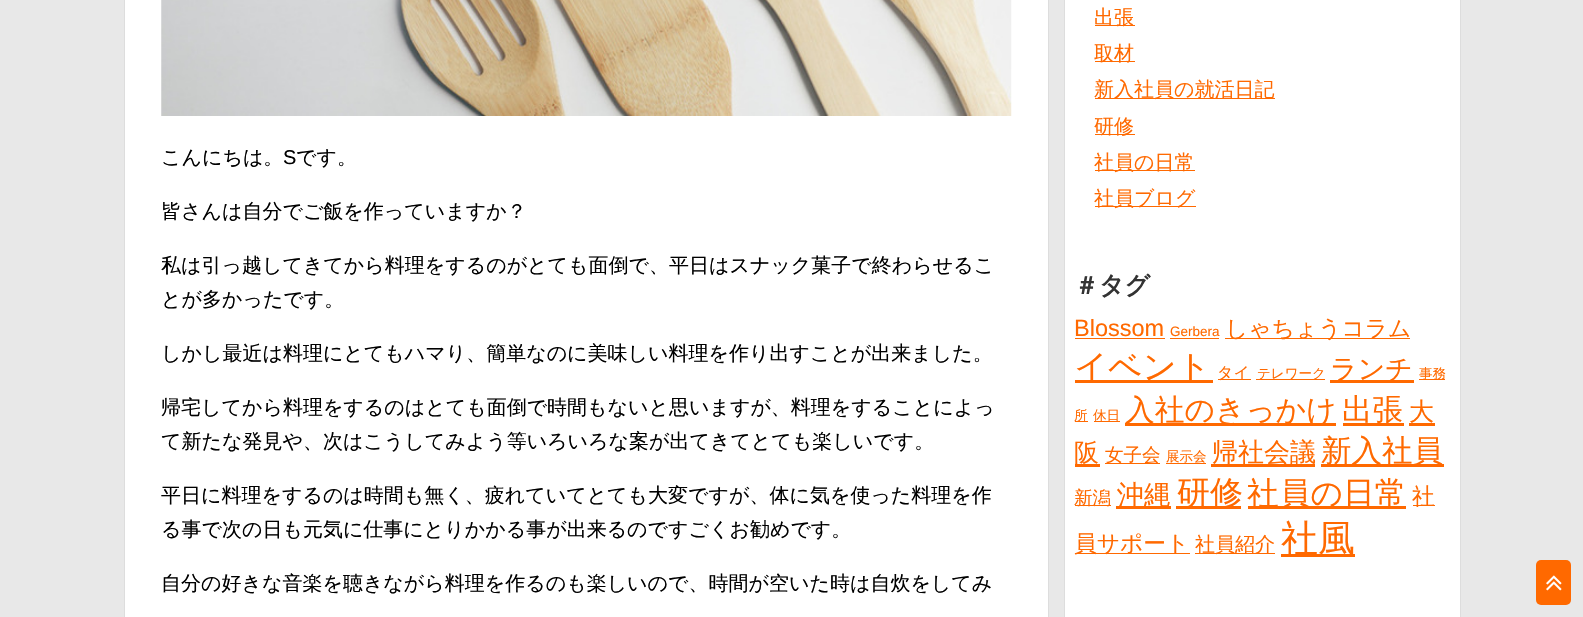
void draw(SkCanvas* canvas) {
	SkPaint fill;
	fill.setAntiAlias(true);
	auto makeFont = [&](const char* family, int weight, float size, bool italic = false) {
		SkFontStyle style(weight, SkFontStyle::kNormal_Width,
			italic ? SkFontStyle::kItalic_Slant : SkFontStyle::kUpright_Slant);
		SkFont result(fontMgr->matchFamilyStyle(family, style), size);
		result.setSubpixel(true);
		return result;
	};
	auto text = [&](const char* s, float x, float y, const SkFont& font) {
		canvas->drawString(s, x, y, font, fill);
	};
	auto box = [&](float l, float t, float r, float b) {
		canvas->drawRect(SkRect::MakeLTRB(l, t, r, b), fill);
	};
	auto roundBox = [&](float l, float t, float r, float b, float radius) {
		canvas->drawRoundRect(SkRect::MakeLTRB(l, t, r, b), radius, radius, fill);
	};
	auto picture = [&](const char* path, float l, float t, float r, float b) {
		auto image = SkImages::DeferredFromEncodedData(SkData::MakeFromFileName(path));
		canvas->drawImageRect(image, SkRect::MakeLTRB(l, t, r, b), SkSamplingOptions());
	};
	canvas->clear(0xFFE8E8E8);
	fill.setColor(0xFFFFFFFF);
	canvas->drawRect(SkRect::MakeLTRB(124.5f, -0.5f, 1048.5f, 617.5f), fill);
	fill.setStyle(SkPaint::kStroke_Style);
	fill.setStrokeWidth(1);
	fill.setColor(0xFFDDDDDD);
	canvas->drawRect(SkRect::MakeLTRB(124.5f, -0.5f, 1048.5f, 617.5f), fill);
	picture("image0.png", 161, 0, 1012, 116);
	fill.setStyle(SkPaint::kFill_Style);
	fill.setColor(0xFFFFFFFF);
	canvas->drawRect(SkRect::MakeLTRB(1064.5f, -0.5f, 1460.5f, 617.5f), fill);
	fill.setStyle(SkPaint::kStroke_Style);
	fill.setColor(0xFFDDDDDD);
	canvas->drawRect(SkRect::MakeLTRB(1064.5f, -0.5f, 1460.5f, 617.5f), fill);
	fill.setStyle(SkPaint::kFill_Style);
	fill.setColor(0xFFFF6900);
	box(1095, 25, 1135, 26);
	box(1095, 61, 1135, 62);
	box(1095, 98, 1275, 99);
	box(1095, 134, 1135, 135);
	box(1095, 170, 1195, 171);
	box(1095, 206, 1196, 207);
	box(1075, 338, 1165, 339);
	box(1170, 338, 1219, 339);
	box(1225, 338, 1410, 339);
	box(1075, 380, 1213, 383);
	box(1218, 379, 1251, 380);
	box(1256, 379, 1325, 380);
	box(1330, 380, 1414, 383);
	box(1419, 379, 1445, 380);
	box(1075, 421, 1088, 422);
	box(1094, 421, 1120, 422);
	box(1125, 423, 1336, 426);
	box(1343, 423, 1404, 426);
	box(1409, 423, 1435, 426);
	box(1075, 464, 1100, 467);
	box(1105, 463, 1160, 464);
	box(1166, 463, 1206, 464);
	box(1211, 464, 1315, 467);
	box(1321, 464, 1444, 467);
	box(1075, 505, 1111, 506);
	box(1116, 506, 1171, 509);
	box(1176, 506, 1241, 509);
	box(1248, 506, 1406, 509);
	box(1413, 505, 1435, 506);
	box(1075, 553, 1190, 554);
	box(1195, 553, 1275, 554);
	box(1281, 554, 1355, 557);
	roundBox(1536, 560, 1571, 605, 5);
	picture("image1.png", 1546, 575, 1562, 591);
	auto font1 = makeFont("WenQuanYi Zen Hei", 500, 20);
	fill.setColor(0xFF000000);
	text("こんにちは。", 161, 164, font1);
	auto font2 = makeFont("Liberation Sans", 400, 20);
	text("S", 283, 164, font2);
	text("です。", 296, 164, font1);
	text("皆さんは自分でご飯を作っていますか？", 161, 218, font1);
	text("私は引っ越してきてから料理をするのがとても面倒で、平日はスナック菓子で終わらせるこ", 161, 272, font1);
	text("とが多かったです。", 161, 306, font1);
	text("しかし最近は料理にとてもハマり、簡単なのに美味しい料理を作り出すことが出来ました。", 161, 360, font1);
	text("帰宅してから料理をするのはとても面倒で時間もないと思いますが、料理をすることによっ", 161, 414, font1);
	text("て新たな発見や、次はこうしてみよう等いろいろな案が出てきてとても楽しいです。", 161, 448, font1);
	text("平日に料理をするのは時間も無く、疲れていてとても大変ですが、体に気を使った料理を作", 161, 502, font1);
	text("る事で次の日も元気に仕事にとりかかる事が出来るのですごくお勧めです。", 161, 536, font1);
	text("自分の好きな音楽を聴きながら料理を作るのも楽しいので、時間が空いた時は自炊をしてみ", 161, 590, font1);
	fill.setColor(0xFFFF6900);
	text("出張", 1094, 24, font1);
	text("取材", 1094, 60, font1);
	text("新入社員の就活日記", 1094, 96, font1);
	text("研修", 1094, 133, font1);
	text("社員の日常", 1094, 169, font1);
	text("社員ブログ", 1094, 205, font1);
	auto font3 = makeFont("WenQuanYi Zen Hei", 700, 25);
	fill.setColor(0xFF333333);
	text("＃タグ", 1074, 294, font3);
	auto font4 = makeFont("Liberation Sans", 400, 23.5f);
	fill.setColor(0xFFFF6900);
	text("Blossom", 1074, 336, font4);
	auto font5 = makeFont("Liberation Sans", 400, 13.5f);
	text("Gerbera", 1170, 336, font5);
	auto font6 = makeFont("WenQuanYi Zen Hei", 500, 22.75f);
	text("しゃちょうコラム", 1225, 336, font6);
	auto font7 = makeFont("WenQuanYi Zen Hei", 500, 33.5f);
	text("イベント", 1074, 378, font7);
	auto font8 = makeFont("WenQuanYi Zen Hei", 500, 16);
	text("タイ", 1217, 378, font8);
	auto font9 = makeFont("WenQuanYi Zen Hei", 500, 13.5f);
	text("テレワーク", 1257, 378, font9);
	auto font10 = makeFont("WenQuanYi Zen Hei", 500, 27);
	text("ランチ", 1330, 378, font10);
	text("事務", 1419, 378, font9);
	text("所", 1074, 420, font9);
	text("休日", 1093, 420, font9);
	auto font11 = makeFont("WenQuanYi Zen Hei", 500, 29.75f);
	text("入社のきっかけ", 1125, 420, font11);
	auto font12 = makeFont("WenQuanYi Zen Hei", 500, 30.5f);
	text("出張", 1342, 420, font12);
	auto font13 = makeFont("WenQuanYi Zen Hei", 500, 25);
	text("大", 1409, 420, font13);
	text("阪", 1074, 461, font13);
	auto font14 = makeFont("WenQuanYi Zen Hei", 500, 18.5f);
	text("女子会", 1105, 461, font14);
	text("展示会", 1166, 461, font9);
	auto font15 = makeFont("WenQuanYi Zen Hei", 500, 26);
	text("帰社会議", 1212, 461, font15);
	text("新入社員", 1321, 461, font12);
	text("新潟", 1074, 504, font14);
	text("沖縄", 1117, 504, font10);
	auto font16 = makeFont("WenQuanYi Zen Hei", 500, 33);
	text("研修", 1177, 504, font16);
	auto font17 = makeFont("WenQuanYi Zen Hei", 500, 31.75f);
	text("社員の日常", 1247, 504, font17);
	text("社", 1412, 504, font6);
	text("員サポート", 1074, 551, font6);
	text("社員紹介", 1195, 551, font1);
	auto font18 = makeFont("WenQuanYi Zen Hei", 500, 37);
	text("社風", 1281, 551, font18);
}
